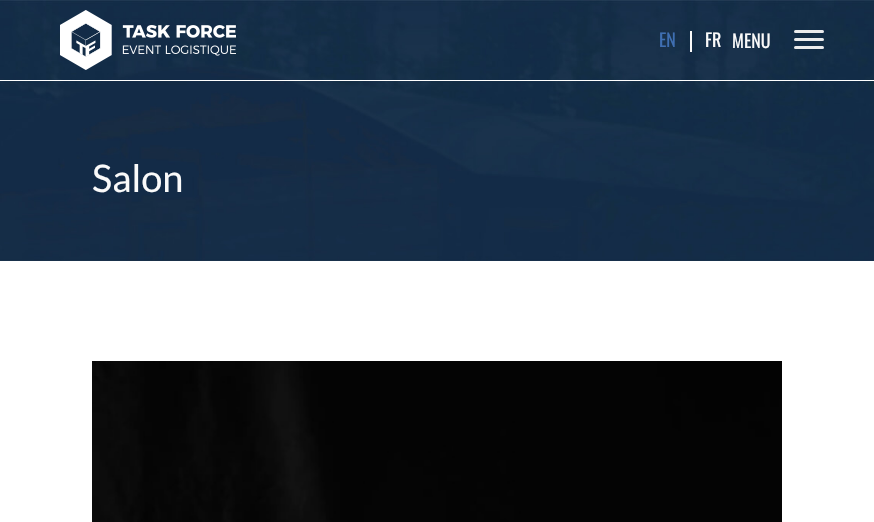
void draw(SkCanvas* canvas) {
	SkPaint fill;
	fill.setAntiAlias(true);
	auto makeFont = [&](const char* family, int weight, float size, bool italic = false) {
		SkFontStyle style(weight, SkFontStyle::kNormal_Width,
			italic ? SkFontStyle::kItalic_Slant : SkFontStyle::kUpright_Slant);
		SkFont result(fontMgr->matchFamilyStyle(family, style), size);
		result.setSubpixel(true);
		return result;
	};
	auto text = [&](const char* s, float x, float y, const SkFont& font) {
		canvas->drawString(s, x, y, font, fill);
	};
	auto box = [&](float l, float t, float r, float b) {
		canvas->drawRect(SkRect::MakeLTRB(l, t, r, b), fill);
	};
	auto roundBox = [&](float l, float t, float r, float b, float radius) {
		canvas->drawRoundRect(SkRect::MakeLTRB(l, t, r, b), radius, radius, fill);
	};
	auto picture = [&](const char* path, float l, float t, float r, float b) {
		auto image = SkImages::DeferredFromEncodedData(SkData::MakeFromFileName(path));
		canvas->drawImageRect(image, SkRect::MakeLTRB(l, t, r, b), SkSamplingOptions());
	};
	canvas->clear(0xFFFFFFFF);
	picture("image1.png", 0, 0, 874, 261);
	fill.setColor(0xFFFFFFFF);
	box(0, 80, 874, 81);
	picture("image0.png", 60, 10, 236, 70);
	fill.setColor(0xFFFAFAFA);
	box(690, 31, 692, 52);
	fill.setColor(0xFFEBECED);
	roundBox(794, 30, 824, 33, 1.5f);
	roundBox(794, 38, 824, 41, 1.5f);
	roundBox(794, 46, 824, 49, 1.5f);
	picture("image2.png", 92, 361, 782, 522);
	auto font1 = makeFont("Oswald", 400, 18);
	fill.setColor(0xFF3F6FB2);
	text("EN", 659, 47, font1);
	fill.setColor(0xFFFAFAFA);
	text("FR", 705, 47, font1);
	text("MENU", 732, 48, font1);
	auto font2 = makeFont("Lato", 400, 38);
	text("Salon", 92, 192, font2);
}
